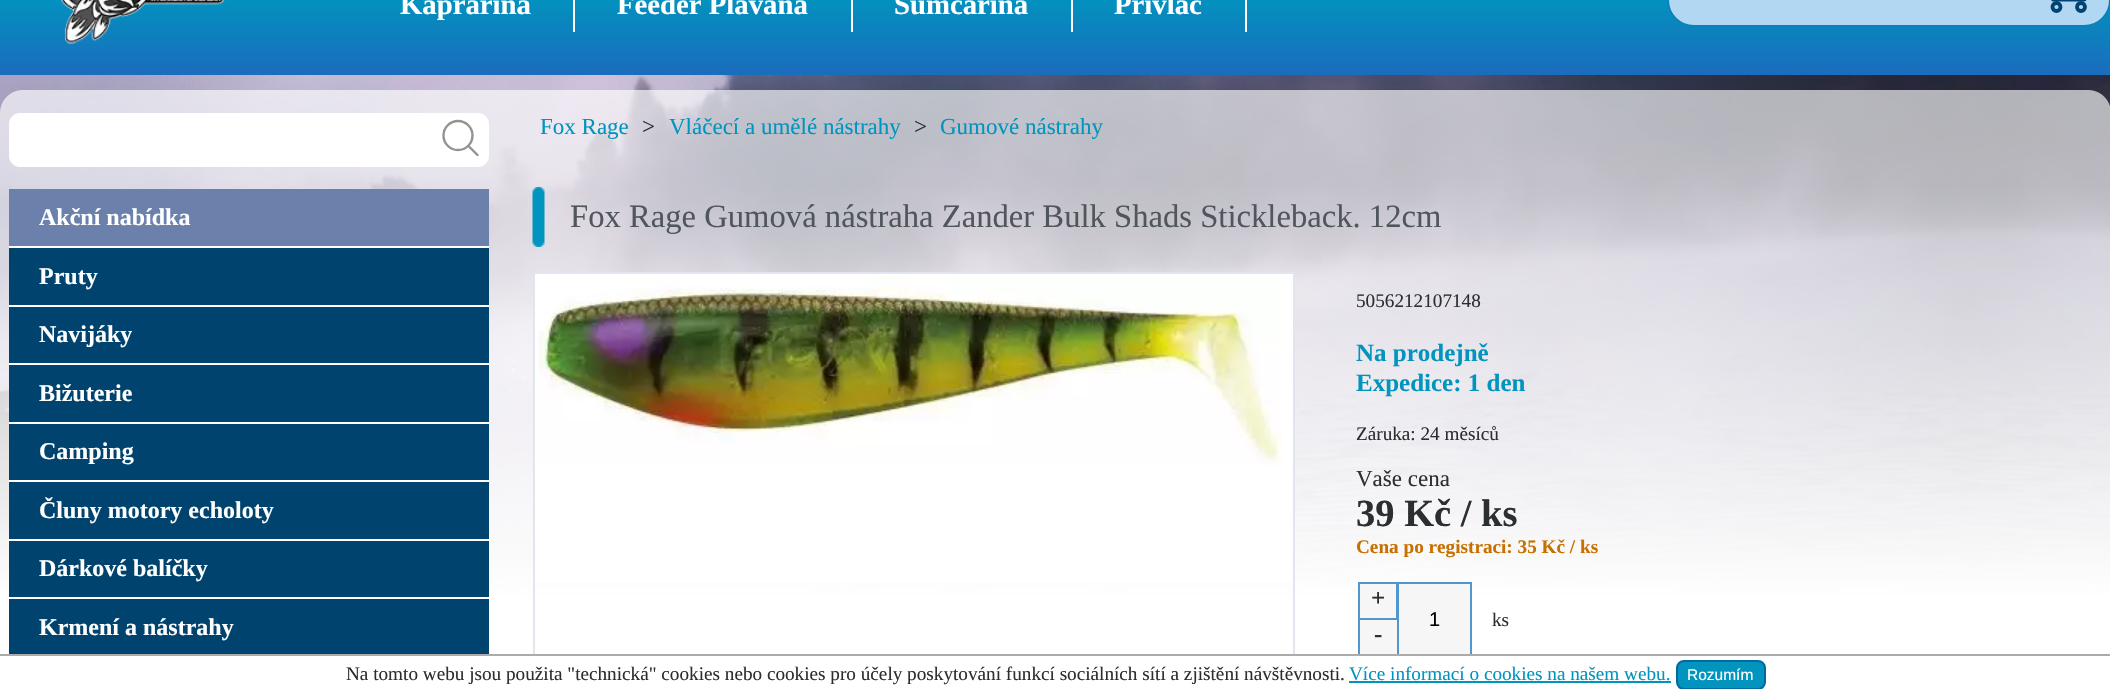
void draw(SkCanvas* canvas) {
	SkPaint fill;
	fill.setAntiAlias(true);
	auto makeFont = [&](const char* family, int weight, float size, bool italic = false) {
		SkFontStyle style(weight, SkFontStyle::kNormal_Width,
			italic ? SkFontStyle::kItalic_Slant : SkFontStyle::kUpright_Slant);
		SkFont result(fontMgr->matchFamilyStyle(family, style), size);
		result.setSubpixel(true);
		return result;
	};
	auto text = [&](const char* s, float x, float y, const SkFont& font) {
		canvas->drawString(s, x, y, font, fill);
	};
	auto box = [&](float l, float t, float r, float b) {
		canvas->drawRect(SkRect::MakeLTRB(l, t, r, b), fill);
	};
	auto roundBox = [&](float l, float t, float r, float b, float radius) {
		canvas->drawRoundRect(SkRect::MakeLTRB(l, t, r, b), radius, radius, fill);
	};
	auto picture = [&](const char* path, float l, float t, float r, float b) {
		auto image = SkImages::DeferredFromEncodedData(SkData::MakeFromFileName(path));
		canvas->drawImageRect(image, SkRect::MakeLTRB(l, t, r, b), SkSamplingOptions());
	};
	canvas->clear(0xFFFFFFFF);
	picture("image0.png", 0, 75, 2110, 654);
	{
		const SkColor colors[] = {0xFF0061B8, 0xFF0194BF, 0xFF0194BF, 0xFF1B6CBD};
		const float stops[] = {0, 0.4f, 0.6f, 1};
		const SkPoint ends[] = {{1055, -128}, {1055, 75}};
		fill.setShader(SkGradientShader::MakeLinear(ends, colors, stops, 4, SkTileMode::kClamp));
		fill.setAlpha(255);
	}
	box(0, 0, 2110, 75);
	picture("image1.png", 61, 0, 225, 44);
	fill.setShader(nullptr);
	fill.setColor(0xFFB2D7F2);
	canvas->drawRoundRect(SkRect::MakeLTRB(1668, -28, 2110, 26), 26, 26, fill);
	fill.setStyle(SkPaint::kStroke_Style);
	fill.setStrokeWidth(2);
	fill.setColor(0xFF0B81BC);
	canvas->drawRoundRect(SkRect::MakeLTRB(1668, -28, 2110, 26), 26, 26, fill);
	fill.setStrokeWidth(3.8f);
	fill.setStrokeCap(SkPaint::kRound_Cap);
	fill.setStrokeJoin(SkPaint::kRound_Join);
	fill.setColor(0xFF004372);
	canvas->drawPath(SkPathBuilder().moveTo(2045, -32).lineTo(2090, -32).lineTo(2084.5f, -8).lineTo(2051, -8).moveTo(2084.5f, -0.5f).lineTo(2053, -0.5f).lineTo(2043.5f, -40).lineTo(2038, -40).detach(), fill);
	fill.setStrokeCap(SkPaint::kButt_Cap);
	fill.setStrokeJoin(SkPaint::kMiter_Join);
	canvas->drawCircle(2081, 7, 4, fill);
	canvas->drawCircle(2056.5f, 7, 4, fill);
	fill.setStyle(SkPaint::kFill_Style);
	fill.setColor(0xFF00436E);
	box(9, 248, 489, 654);
	fill.setColor(0xFFFFFFFF);
	box(573, 0, 575, 32);
	box(851, 0, 853, 32);
	box(1071, 0, 1073, 32);
	box(1245, 0, 1247, 32);
	fill.setColor(0xFF6B81AB);
	box(9, 189, 489, 246);
	fill.setColor(0xFFFFFFFF);
	box(9, 246, 489, 248);
	box(9, 305, 489, 307);
	box(9, 363, 489, 365);
	box(9, 422, 489, 424);
	box(9, 480, 489, 482);
	box(9, 539, 489, 541);
	box(9, 597, 489, 599);
	roundBox(9, 113, 489, 167, 11);
	fill.setStyle(SkPaint::kStroke_Style);
	fill.setStrokeWidth(2.4f);
	fill.setColor(0xFF939393);
	canvas->drawCircle(458, 135.5f, 14.5f, fill);
	fill.setStrokeCap(SkPaint::kRound_Cap);
	fill.setStrokeJoin(SkPaint::kRound_Join);
	canvas->drawPath(SkPathBuilder().moveTo(469, 146.5f).lineTo(477.5f, 155).detach(), fill);
	picture("image2.png", 532, 187, 545, 247);
	fill.setStyle(SkPaint::kFill_Style);
	fill.setColor(0xFFFFFFFF);
	box(535, 274, 1293, 582);
	fill.setStyle(SkPaint::kStroke_Style);
	fill.setStrokeWidth(2);
	fill.setStrokeCap(SkPaint::kButt_Cap);
	fill.setStrokeJoin(SkPaint::kMiter_Join);
	fill.setColor(0xFFE1E5ED);
	canvas->drawRect(SkRect::MakeLTRB(534, 273, 1294, 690), fill);
	picture("image3.png", 538, 277, 1282, 465);
	fill.setStyle(SkPaint::kFill_Style);
	fill.setColor(0xFFF6F6F6);
	box(1399, 584, 1470, 654);
	fill.setStyle(SkPaint::kStroke_Style);
	fill.setColor(0xFF5097CF);
	canvas->drawRect(SkRect::MakeLTRB(1398, 583, 1471, 656), fill);
	fill.setStyle(SkPaint::kFill_Style);
	fill.setColor(0xFFF6F6F6);
	canvas->drawRect(SkRect::MakeLTRB(1359, 583, 1397, 619), fill);
	fill.setStyle(SkPaint::kStroke_Style);
	fill.setColor(0xFF5097CF);
	canvas->drawRect(SkRect::MakeLTRB(1359, 583, 1397, 619), fill);
	fill.setStyle(SkPaint::kFill_Style);
	fill.setColor(0xFFF6F6F6);
	box(1360, 620, 1397, 654);
	fill.setColor(0xFF5097CF);
	box(1358, 620, 1360, 657);
	fill.setColor(0xFFFFFFFF);
	box(533, 656, 1472, 689);
	fill.setColor(0xFFABABAB);
	box(0, 654, 2110, 656);
	fill.setColor(0xFF0094BE);
	box(1349, 681, 1671, 683);
	canvas->drawRoundRect(SkRect::MakeLTRB(1677, 661, 1765, 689), 7, 7, fill);
	fill.setStyle(SkPaint::kStroke_Style);
	fill.setColor(0xFF00699D);
	canvas->drawRoundRect(SkRect::MakeLTRB(1677, 661, 1765, 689), 7, 7, fill);
	auto font1 = makeFont("Liberation Serif", 700, 28.75f);
	fill.setStyle(SkPaint::kFill_Style);
	fill.setColor(0xFFFFFFFF);
	text("Kaprařina", 400, 14, font1);
	text("Feeder Plavaná", 617, 14, font1);
	text("Sumcařina", 894, 14, font1);
	text("Přívlač", 1114, 14, font1);
	auto font2 = makeFont("Liberation Serif", 700, 24);
	text("Akční nabídka", 39, 225, font2);
	text("Pruty", 39, 284, font2);
	text("Navijáky", 39, 342, font2);
	text("Bižuterie", 39, 401, font2);
	text("Camping", 39, 459, font2);
	text("Čluny motory echoloty", 39, 518, font2);
	text("Dárkové balíčky", 39, 576, font2);
	text("Krmení a nástrahy", 39, 635, font2);
	auto font3 = makeFont("Liberation Serif", 400, 23);
	fill.setColor(0xFF0094BE);
	text("Fox Rage", 540, 134, font3);
	fill.setColor(0xFF2C2F32);
	text(">", 642, 134, font3);
	fill.setColor(0xFF0094BE);
	text("Vláčecí a umělé nástrahy", 669, 134, font3);
	fill.setColor(0xFF2C2F32);
	text(">", 914, 134, font3);
	fill.setColor(0xFF0094BE);
	text("Gumové nástrahy", 940, 134, font3);
	auto font4 = makeFont("Liberation Serif", 400, 32.65f);
	fill.setColor(0xFF51565D);
	text("Fox Rage Gumová nástraha Zander Bulk Shads Stickleback. 12cm", 570, 227, font4);
	auto font5 = makeFont("Liberation Serif", 400, 19.2f);
	fill.setColor(0xFF2C2F32);
	text("5056212107148", 1356, 307, font5);
	auto font6 = makeFont("Liberation Serif", 700, 25);
	fill.setColor(0xFF0094BE);
	text("Na prodejně", 1356, 361, font6);
	text("Expedice: 1 den", 1356, 391, font6);
	fill.setColor(0xFF2C2F32);
	text("Záruka: 24 měsíců", 1356, 440, font5);
	text("Vaše cena", 1356, 486, font3);
	auto font7 = makeFont("Liberation Serif", 700, 38.5f);
	text("39 Kč / ks", 1356, 526, font7);
	auto font8 = makeFont("Liberation Serif", 700, 19.2f);
	fill.setColor(0xFFC77000);
	text("Cena po registraci: 35 Kč / ks", 1356, 553, font8);
	fill.setColor(0xFF2C2F32);
	text("+", 1371, 606, font6);
	auto font9 = makeFont("Liberation Sans", 400, 20);
	fill.setColor(0xFF000000);
	text("1", 1429, 626, font9);
	fill.setColor(0xFF2C2F32);
	text("ks", 1492, 626, font5);
	text("-", 1374, 642, font6);
	text("Na tomto webu jsou použita \"technická\" cookies nebo cookies pro účely poskytování funkcí sociálních sítí a zjištění návštěvnosti.", 346, 680, font5);
	fill.setColor(0xFF0094BE);
	text("Více informací o cookies na našem webu.", 1349, 680, font5);
	auto font10 = makeFont("Liberation Sans", 400, 15.5f);
	fill.setColor(0xFFFFFFFF);
	text("Rozumím", 1687, 680, font10);
}
